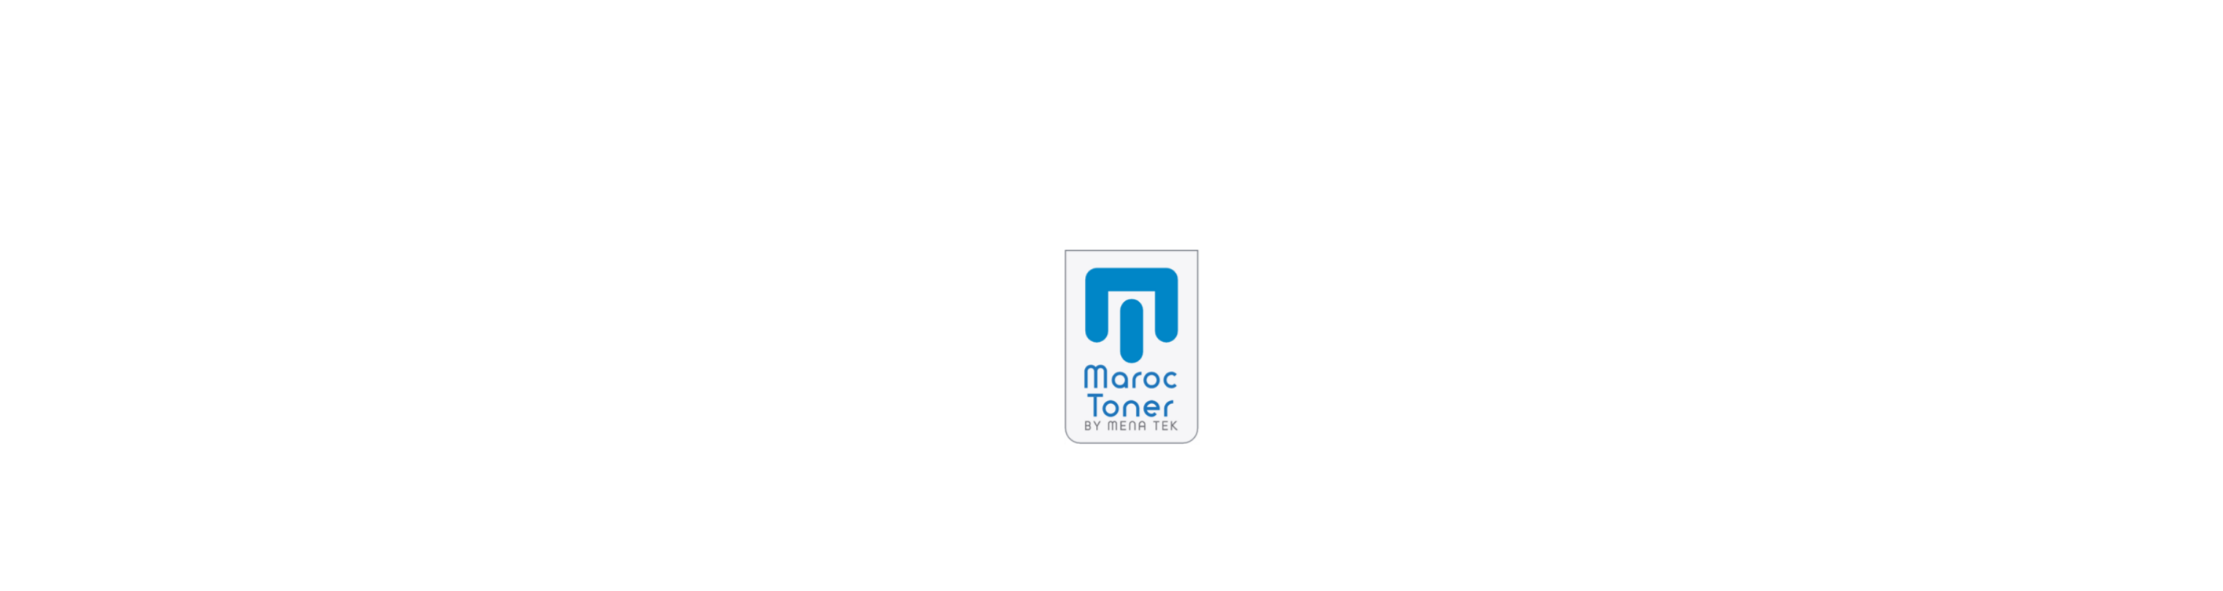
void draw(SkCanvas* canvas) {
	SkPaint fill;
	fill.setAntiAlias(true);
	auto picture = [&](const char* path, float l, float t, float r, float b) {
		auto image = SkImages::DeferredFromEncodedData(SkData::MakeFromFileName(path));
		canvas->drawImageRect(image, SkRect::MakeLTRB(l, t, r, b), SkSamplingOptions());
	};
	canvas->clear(0xFFFFFFFF);
	picture("image0.png", 1064, 249, 1200, 445);
}
